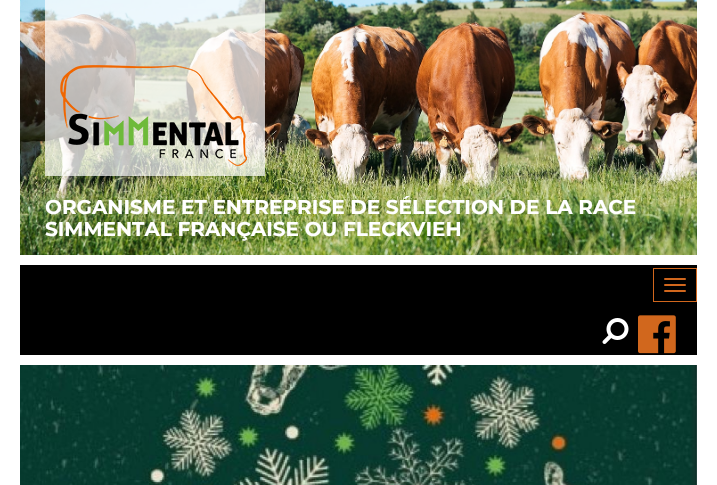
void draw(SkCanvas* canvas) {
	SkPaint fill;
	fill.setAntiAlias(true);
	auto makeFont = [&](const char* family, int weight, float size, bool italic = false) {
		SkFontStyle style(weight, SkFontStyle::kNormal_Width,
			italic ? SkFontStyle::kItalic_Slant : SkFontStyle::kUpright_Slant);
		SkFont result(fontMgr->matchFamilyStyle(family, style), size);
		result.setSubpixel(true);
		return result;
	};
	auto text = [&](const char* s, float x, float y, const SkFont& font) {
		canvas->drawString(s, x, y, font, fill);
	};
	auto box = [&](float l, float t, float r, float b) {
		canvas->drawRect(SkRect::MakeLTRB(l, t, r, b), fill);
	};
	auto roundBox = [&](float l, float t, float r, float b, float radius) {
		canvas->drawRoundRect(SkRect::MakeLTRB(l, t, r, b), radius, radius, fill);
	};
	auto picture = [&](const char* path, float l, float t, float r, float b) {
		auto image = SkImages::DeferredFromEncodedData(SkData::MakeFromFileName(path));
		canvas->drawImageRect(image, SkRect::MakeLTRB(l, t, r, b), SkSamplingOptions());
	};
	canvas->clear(0xFFFFFFFF);
	picture("image0.png", 20, 0, 697, 255);
	fill.setColor(0xB3FFFFFF);
	box(45, 0, 265, 176);
	picture("image1.png", 60, 65, 247, 166);
	fill.setColor(0xFF000000);
	box(20, 265, 697, 355);
	fill.setStyle(SkPaint::kStroke_Style);
	fill.setStrokeWidth(1);
	fill.setColor(0xFFD1671D);
	canvas->drawRect(SkRect::MakeLTRB(653.5f, 268.5f, 696.5f, 301.5f), fill);
	fill.setStyle(SkPaint::kFill_Style);
	roundBox(664, 278, 686, 280, 1);
	roundBox(664, 284, 686, 286, 1);
	roundBox(664, 290, 686, 292, 1);
	picture("image2.png", 602, 318, 629, 344);
	picture("image3.png", 638, 315, 676, 354);
	picture("image4.png", 20, 365, 697, 485);
	auto font1 = makeFont("Montserrat", 700, 20);
	fill.setColor(0xFFFFFFFF);
	text("ORGANISME ET ENTREPRISE DE SÉLECTION DE LA RACE", 45, 214, font1);
	text("SIMMENTAL FRANÇAISE OU FLECKVIEH", 45, 236, font1);
}
